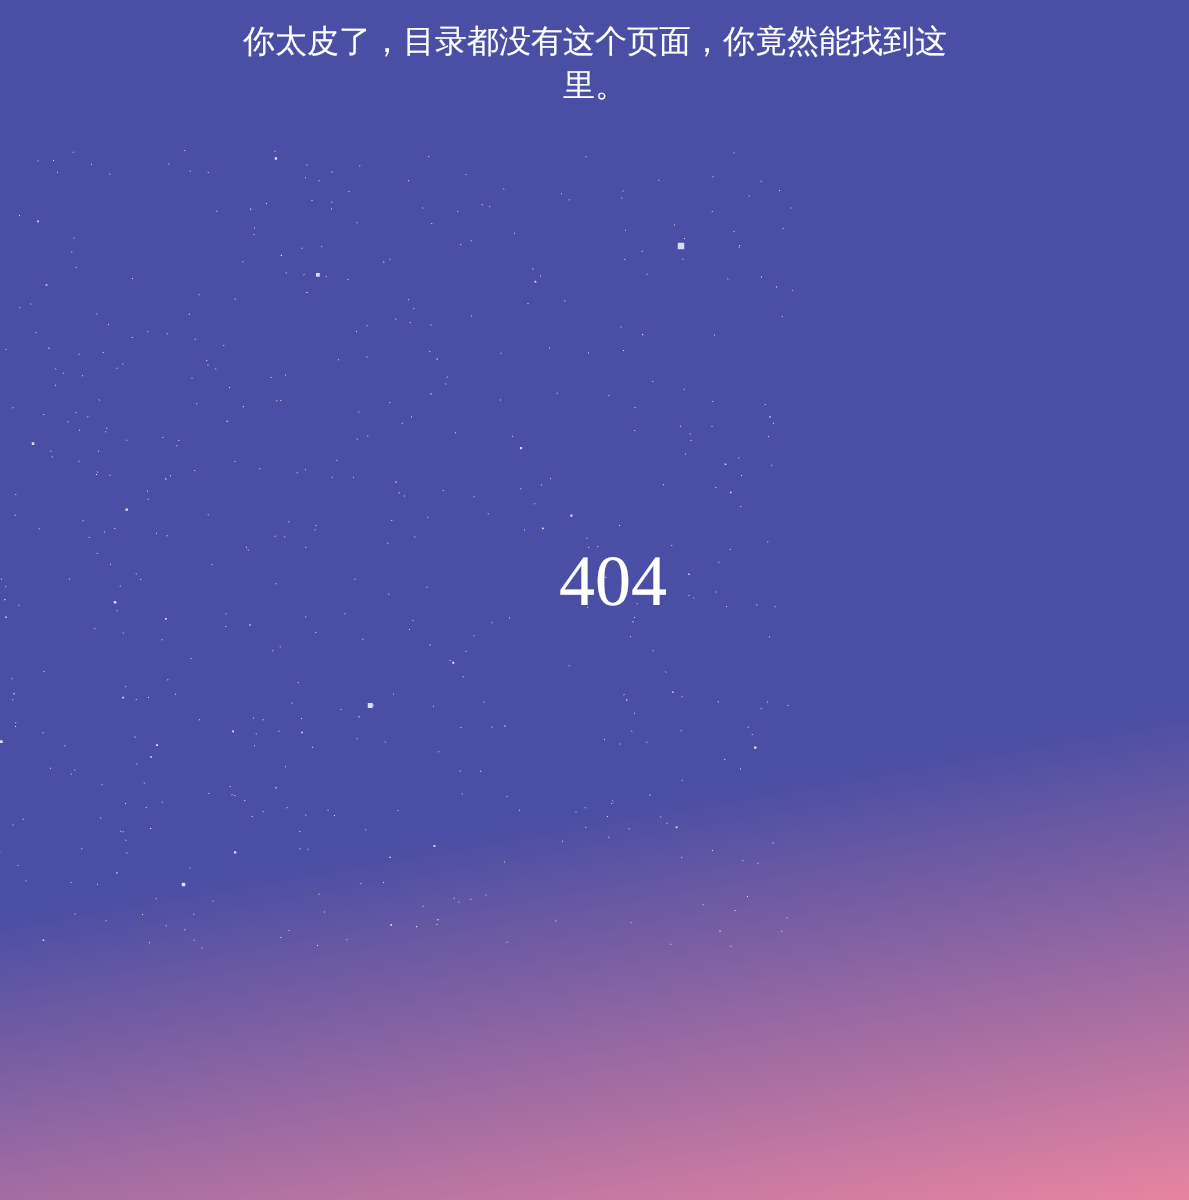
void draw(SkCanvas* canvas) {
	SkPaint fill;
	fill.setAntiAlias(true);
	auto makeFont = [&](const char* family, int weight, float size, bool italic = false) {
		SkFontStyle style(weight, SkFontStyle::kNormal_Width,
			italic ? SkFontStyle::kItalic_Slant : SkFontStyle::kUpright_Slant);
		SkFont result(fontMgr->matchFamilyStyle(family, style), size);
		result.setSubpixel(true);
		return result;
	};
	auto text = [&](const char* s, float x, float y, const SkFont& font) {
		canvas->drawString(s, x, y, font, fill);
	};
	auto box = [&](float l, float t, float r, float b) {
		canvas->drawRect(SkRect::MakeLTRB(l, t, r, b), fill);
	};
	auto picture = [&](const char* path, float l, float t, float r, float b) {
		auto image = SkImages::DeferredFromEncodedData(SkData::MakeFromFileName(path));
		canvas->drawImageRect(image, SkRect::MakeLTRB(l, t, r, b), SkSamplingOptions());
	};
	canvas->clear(0xFFFFFFFF);
	{
		const SkColor colors[] = {0xFF4A4EA4, 0xFFE884A1};
		const float stops[] = {0.65f, 1};
		const SkPoint ends[] = {{474, -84}, {715, 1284}};
		fill.setShader(SkGradientShader::MakeLinear(ends, colors, stops, 2, SkTileMode::kClamp));
		fill.setAlpha(255);
	}
	box(0, 0, 1189, 1200);
	picture("image0.png", 0, 150, 793, 949);
	auto font1 = makeFont("WenQuanYi Zen Hei", 500, 32);
	fill.setShader(nullptr);
	fill.setColor(0xFFFFFFFF);
	text("你太皮了，目录都没有这个页面，你竟然能找到这", 243, 52, font1);
	text("里。", 563, 96, font1);
	auto font2 = makeFont("Liberation Serif", 400, 72);
	text("404", 559, 605, font2);
}
